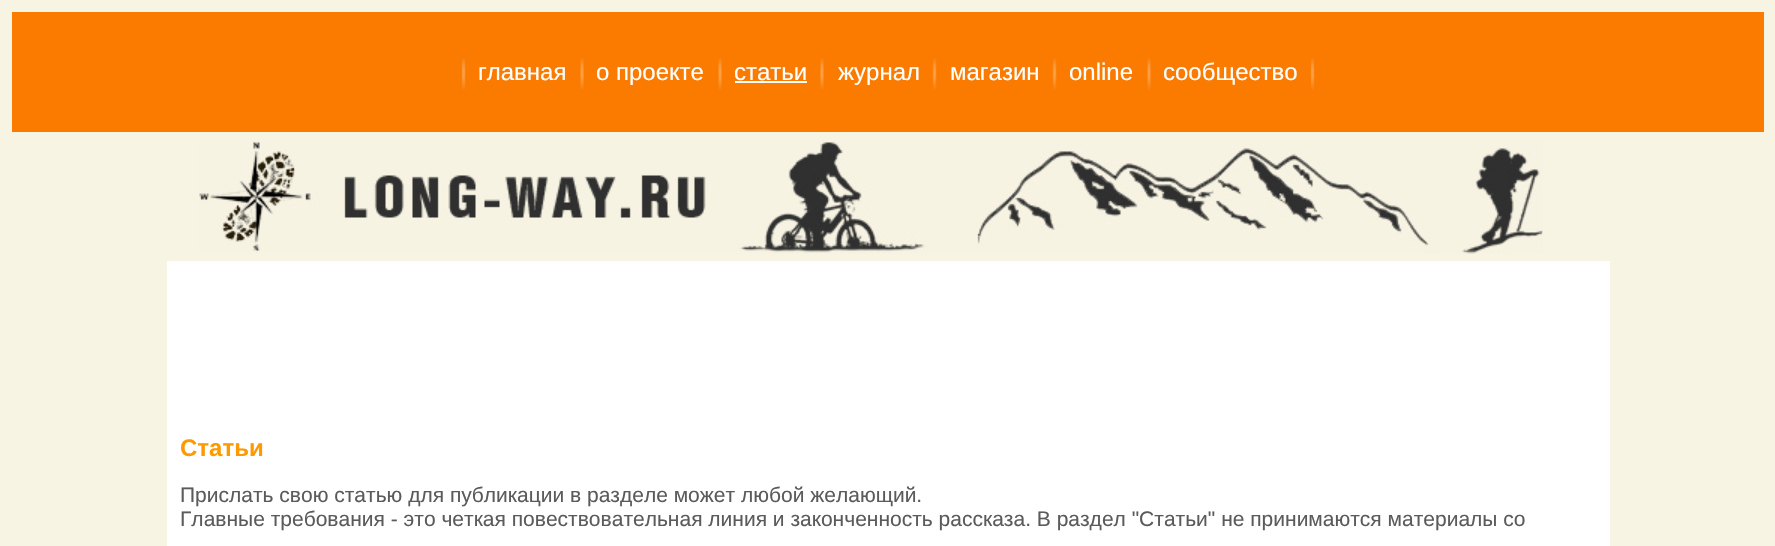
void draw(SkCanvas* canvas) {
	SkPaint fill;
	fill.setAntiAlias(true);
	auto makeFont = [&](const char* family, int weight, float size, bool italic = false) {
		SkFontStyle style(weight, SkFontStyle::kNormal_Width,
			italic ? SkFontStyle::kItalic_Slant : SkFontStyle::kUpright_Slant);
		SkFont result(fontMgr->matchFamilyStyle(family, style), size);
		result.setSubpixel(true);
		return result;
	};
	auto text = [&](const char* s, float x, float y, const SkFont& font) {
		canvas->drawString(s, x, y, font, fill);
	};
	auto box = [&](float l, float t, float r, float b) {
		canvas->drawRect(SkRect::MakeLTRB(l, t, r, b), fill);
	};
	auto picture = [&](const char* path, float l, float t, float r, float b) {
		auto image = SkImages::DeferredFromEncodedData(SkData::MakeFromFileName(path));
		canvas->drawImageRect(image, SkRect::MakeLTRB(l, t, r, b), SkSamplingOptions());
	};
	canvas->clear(0xFFF7F4E3);
	fill.setColor(0xFFFA7B00);
	box(12, 12, 1764, 132);
	picture("image0.png", 461, 58, 466, 90);
	picture("image1.png", 580, 58, 584, 90);
	picture("image1.png", 718, 58, 722, 90);
	fill.setColor(0xFFFFFFFF);
	box(735, 81, 807, 83);
	picture("image2.png", 820, 58, 824, 90);
	picture("image0.png", 932, 58, 937, 90);
	picture("image0.png", 1052, 58, 1057, 90);
	picture("image1.png", 1147, 58, 1151, 90);
	picture("image3.png", 1310, 58, 1315, 90);
	picture("image4.png", 199, 140, 1543, 254);
	box(167, 261, 1610, 546);
	auto font1 = makeFont("Liberation Sans", 400, 24);
	text("главная", 478, 80, font1);
	text("о проекте", 596, 80, font1);
	text("статьи", 734, 80, font1);
	text("журнал", 838, 80, font1);
	text("магазин", 950, 80, font1);
	text("online", 1069, 80, font1);
	text("сообщество", 1163, 80, font1);
	auto font2 = makeFont("Liberation Sans", 700, 24);
	fill.setColor(0xFFFF9900);
	text("Статьи", 180, 456, font2);
	auto font3 = makeFont("Liberation Sans", 400, 21);
	fill.setColor(0xFF5B5B5B);
	text("Прислать свою статью для публикации в разделе может любой желающий.", 180, 502, font3);
	text("Главные требования - это четкая повествовательная линия и законченность рассказа. В раздел \"Статьи\" не принимаются материалы со", 180, 526, font3);
}
